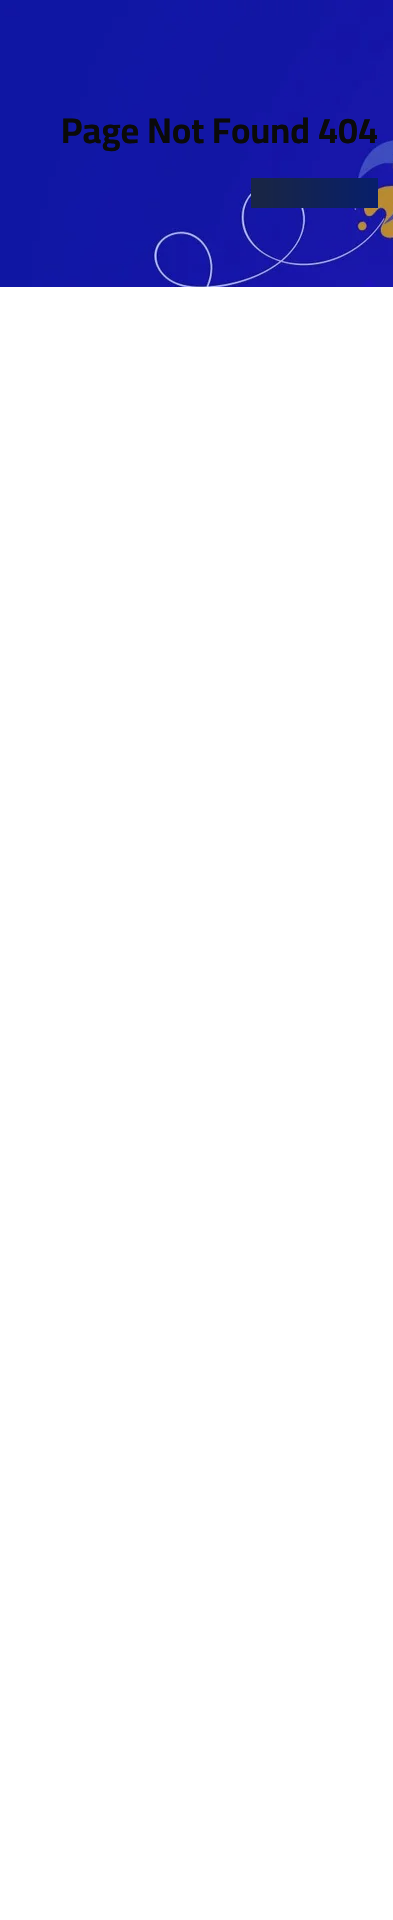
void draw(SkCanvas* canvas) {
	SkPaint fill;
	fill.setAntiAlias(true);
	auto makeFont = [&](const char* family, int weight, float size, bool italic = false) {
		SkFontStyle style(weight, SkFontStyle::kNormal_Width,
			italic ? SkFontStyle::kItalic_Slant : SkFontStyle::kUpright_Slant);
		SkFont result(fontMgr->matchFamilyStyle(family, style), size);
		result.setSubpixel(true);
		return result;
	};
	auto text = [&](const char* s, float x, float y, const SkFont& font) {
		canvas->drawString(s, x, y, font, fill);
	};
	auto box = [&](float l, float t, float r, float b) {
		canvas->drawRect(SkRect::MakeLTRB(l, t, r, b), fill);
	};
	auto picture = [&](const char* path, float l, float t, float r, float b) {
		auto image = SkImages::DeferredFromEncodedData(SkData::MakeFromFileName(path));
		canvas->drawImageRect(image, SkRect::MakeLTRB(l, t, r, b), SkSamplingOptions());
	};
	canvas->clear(0xFFFFFFFF);
	picture("image0.png", 0, 0, 393, 287);
	{
		const SkColor colors[] = {0xFF182546, 0xFF071F6B};
		const float stops[] = {0.1f, 1};
		const SkPoint ends[] = {{251, 193}, {378, 193}};
		fill.setShader(SkGradientShader::MakeLinear(ends, colors, stops, 2, SkTileMode::kClamp));
		fill.setAlpha(255);
	}
	box(251, 178, 378, 208);
	auto font1 = makeFont("Cairo", 700, 36);
	fill.setShader(nullptr);
	fill.setColor(0xFF0A0A0A);
	text("Page Not Found", 61, 143, font1);
	text("404", 318, 143, font1);
}
